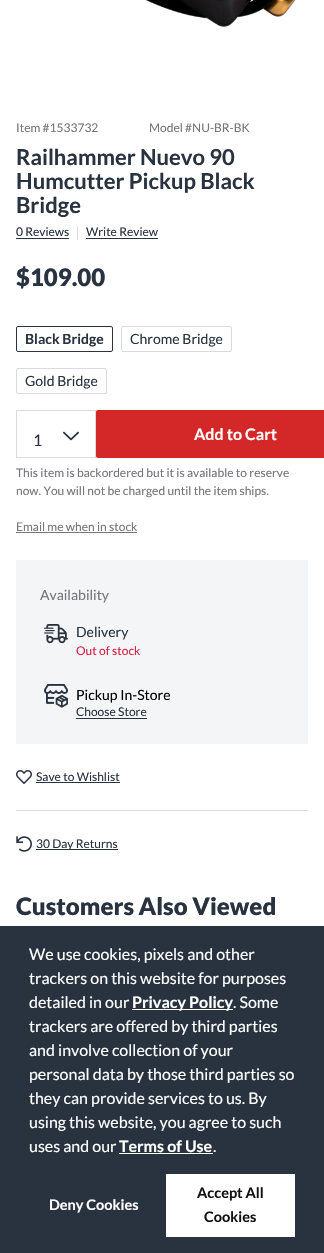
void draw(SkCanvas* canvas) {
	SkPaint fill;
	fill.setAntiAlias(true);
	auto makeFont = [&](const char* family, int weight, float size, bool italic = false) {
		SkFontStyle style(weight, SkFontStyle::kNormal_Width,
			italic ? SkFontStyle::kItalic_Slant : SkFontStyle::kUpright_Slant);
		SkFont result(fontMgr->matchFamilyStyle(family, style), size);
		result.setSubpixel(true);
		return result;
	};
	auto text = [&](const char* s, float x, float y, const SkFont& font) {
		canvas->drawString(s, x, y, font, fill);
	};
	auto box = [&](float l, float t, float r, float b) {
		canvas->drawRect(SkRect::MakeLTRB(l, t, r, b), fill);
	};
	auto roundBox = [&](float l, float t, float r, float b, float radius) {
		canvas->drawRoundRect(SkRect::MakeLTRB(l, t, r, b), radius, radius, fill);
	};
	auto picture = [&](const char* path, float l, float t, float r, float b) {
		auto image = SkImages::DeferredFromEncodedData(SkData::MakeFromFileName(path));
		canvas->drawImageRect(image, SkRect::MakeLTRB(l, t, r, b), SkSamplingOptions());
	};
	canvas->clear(0xFFFFFFFF);
	picture("image0.png", 145, 0, 296, 27);
	fill.setColor(0xFF293340);
	box(16, 238, 69, 239);
	fill.setColor(0xFFD8DCE0);
	box(77, 226, 78, 240);
	fill.setColor(0xFF293340);
	box(86, 238, 158, 239);
	fill.setStyle(SkPaint::kStroke_Style);
	fill.setStrokeWidth(1);
	canvas->drawRoundRect(SkRect::MakeLTRB(16.5f, 326.5f, 112.5f, 351.5f), 1.5f, 1.5f, fill);
	fill.setColor(0xFFD8DCE0);
	canvas->drawRoundRect(SkRect::MakeLTRB(121.5f, 326.5f, 231.5f, 351.5f), 1.5f, 1.5f, fill);
	canvas->drawRoundRect(SkRect::MakeLTRB(16.5f, 368.5f, 106.5f, 393.5f), 1.5f, 1.5f, fill);
	canvas->drawRect(SkRect::MakeLTRB(16.5f, 410.5f, 95.5f, 457.5f), fill);
	picture("image1.png", 63, 431, 79, 441);
	fill.setStyle(SkPaint::kFill_Style);
	fill.setColor(0xFFD42828);
	roundBox(96, 410, 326, 458, 2);
	fill.setColor(0xFF75757C);
	box(16, 532, 137, 533);
	fill.setColor(0xFFF4F5F7);
	box(16, 560, 308, 744);
	picture("image2.png", 44, 624, 68, 644);
	picture("image3.png", 44, 684, 68, 708);
	fill.setColor(0xFF293340);
	box(76, 718, 147, 719);
	picture("image4.png", 16, 770, 32, 784);
	box(36, 782, 120, 783);
	fill.setColor(0xFFD8DCE0);
	box(16, 810, 308, 811);
	picture("image5.png", 16, 836, 32, 852);
	fill.setColor(0xFF293340);
	box(36, 849, 118, 850);
	box(0, 926, 324, 1253);
	fill.setColor(0xFFFFFFFF);
	box(132, 1009, 233, 1010);
	box(119, 1153, 213, 1154);
	box(166, 1174, 295, 1237);
	auto font1 = makeFont("Lato", 400, 12);
	fill.setColor(0xFF75757C);
	text("Item #1533732", 16, 132, font1);
	text("Model #NU-BR-BK", 149, 132, font1);
	auto font2 = makeFont("Lato", 700, 22);
	fill.setColor(0xFF293340);
	text("Railhammer Nuevo 90", 16, 165, font2);
	text("Humcutter Pickup Black", 16, 189, font2);
	text("Bridge", 16, 213, font2);
	text("0 Reviews", 16, 236, font1);
	text("Write Review", 86, 236, font1);
	auto font3 = makeFont("Lato", 900, 24);
	text("$109.00", 16, 286, font3);
	auto font4 = makeFont("Lato", 700, 14);
	text("Black Bridge", 25, 344, font4);
	auto font5 = makeFont("Lato", 400, 14);
	text("Chrome Bridge", 130, 344, font5);
	text("Gold Bridge", 25, 386, font5);
	auto font6 = makeFont("Lato", 400, 16);
	text("1", 33, 446, font6);
	auto font7 = makeFont("Lato", 700, 16);
	fill.setColor(0xFFFFFFFF);
	text("Add to Cart", 194, 440, font7);
	fill.setColor(0xFF75757C);
	text("This item is backordered but it is available to reserve", 16, 477, font1);
	text("now. You will not be charged until the item ships.", 16, 495, font1);
	text("Email me when in stock", 16, 531, font1);
	text("Availability", 40, 600, font5);
	fill.setColor(0xFF293340);
	text("Delivery", 76, 637, font5);
	fill.setColor(0xFFD91F46);
	text("Out of stock", 76, 655, font1);
	fill.setColor(0xFF000000);
	text("Pickup In-Store", 76, 700, font5);
	fill.setColor(0xFF293340);
	text("Choose Store", 76, 716, font1);
	text("Save to Wishlist", 36, 781, font1);
	text("30 Day Returns", 36, 848, font1);
	text("Customers Also Viewed", 16, 915, font3);
	fill.setColor(0xFFFFFFFF);
	text("We use cookies, pixels and other", 29, 960, font6);
	text("trackers on this website for purposes", 29, 984, font6);
	text("detailed in our", 29, 1008, font6);
	text("Privacy Policy", 132, 1008, font7);
	text(". Some", 233, 1008, font6);
	text("trackers are offered by third parties", 29, 1032, font6);
	text("and involve collection of your", 29, 1056, font6);
	text("personal data by those third parties so", 29, 1080, font6);
	text("they can provide services to us. By", 29, 1104, font6);
	text("using this website, you agree to such", 29, 1128, font6);
	text("uses and our", 29, 1152, font6);
	text("Terms of Use", 119, 1152, font7);
	text(".", 213, 1152, font6);
	auto font8 = makeFont("Lato", 700, 14.5f);
	text("Deny Cookies", 49, 1210, font8);
	fill.setColor(0xFF121010);
	text("Accept All", 197, 1198, font8);
	text("Cookies", 204, 1222, font8);
}
